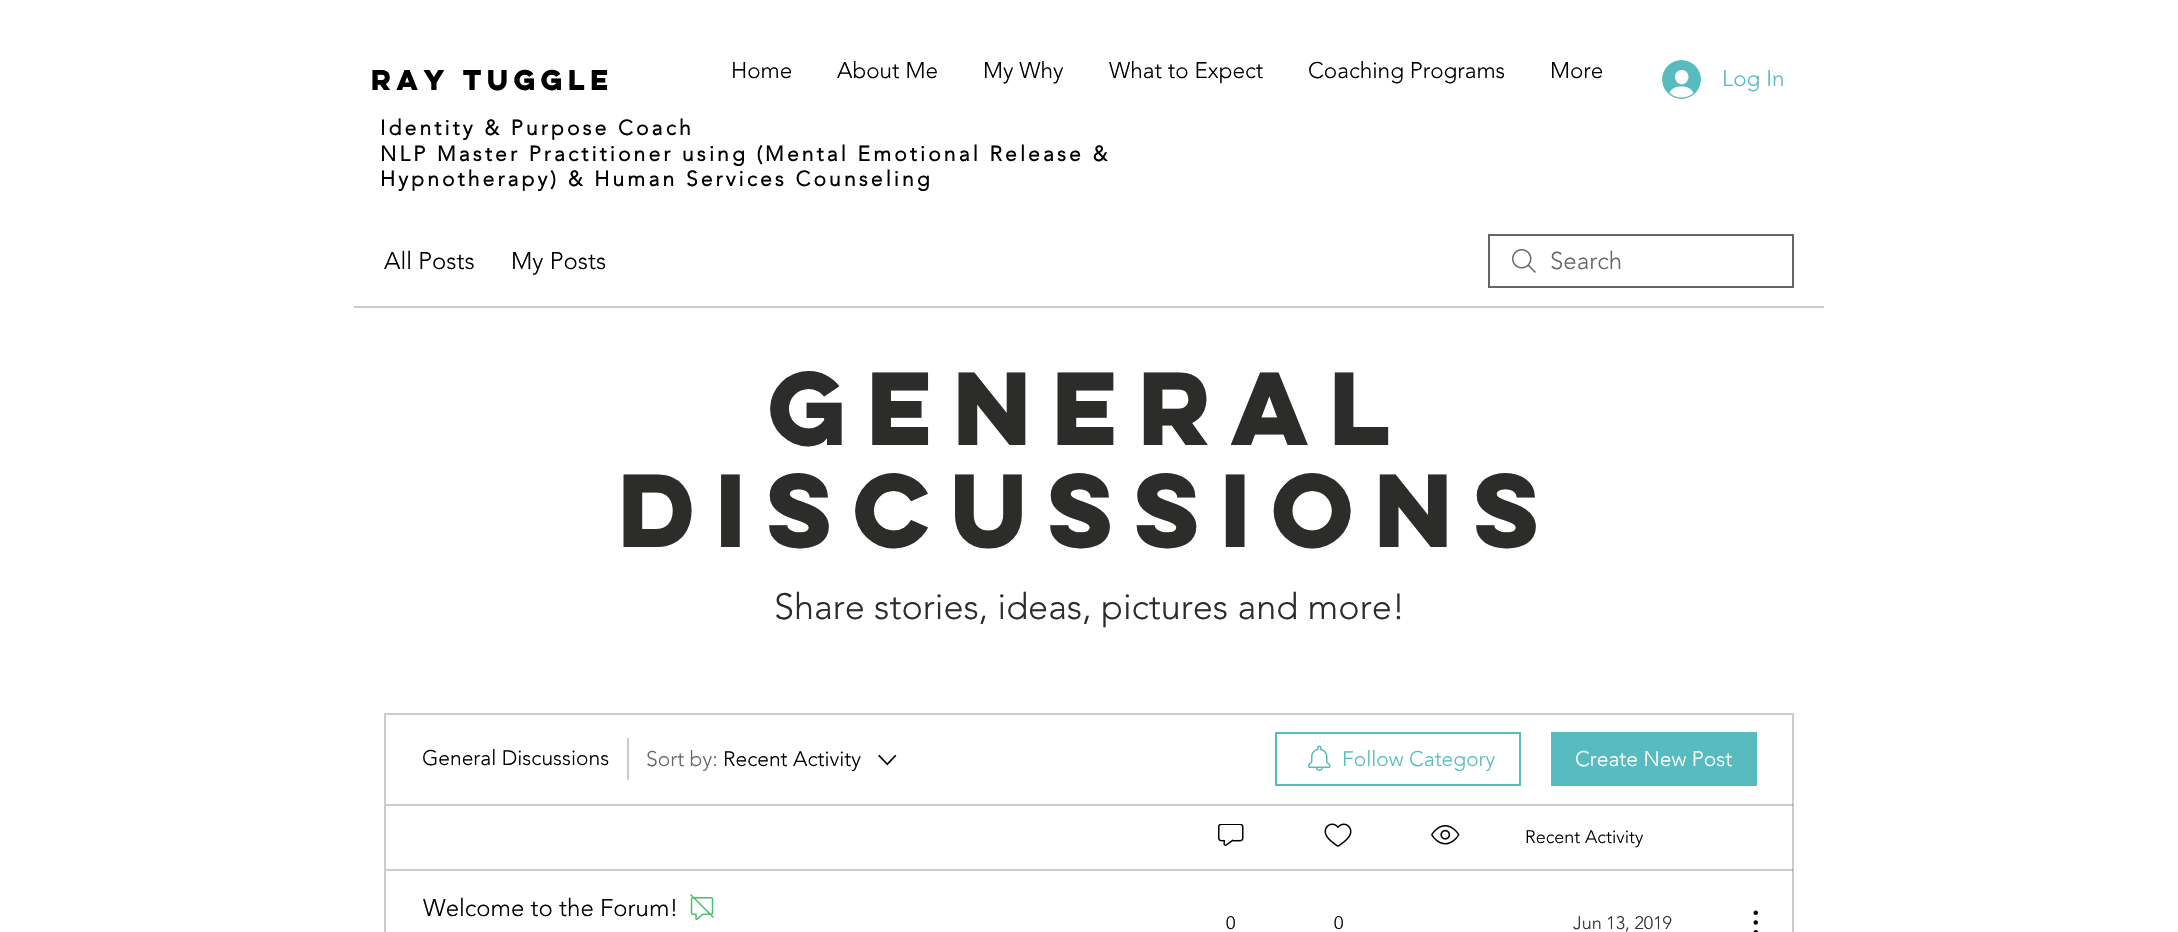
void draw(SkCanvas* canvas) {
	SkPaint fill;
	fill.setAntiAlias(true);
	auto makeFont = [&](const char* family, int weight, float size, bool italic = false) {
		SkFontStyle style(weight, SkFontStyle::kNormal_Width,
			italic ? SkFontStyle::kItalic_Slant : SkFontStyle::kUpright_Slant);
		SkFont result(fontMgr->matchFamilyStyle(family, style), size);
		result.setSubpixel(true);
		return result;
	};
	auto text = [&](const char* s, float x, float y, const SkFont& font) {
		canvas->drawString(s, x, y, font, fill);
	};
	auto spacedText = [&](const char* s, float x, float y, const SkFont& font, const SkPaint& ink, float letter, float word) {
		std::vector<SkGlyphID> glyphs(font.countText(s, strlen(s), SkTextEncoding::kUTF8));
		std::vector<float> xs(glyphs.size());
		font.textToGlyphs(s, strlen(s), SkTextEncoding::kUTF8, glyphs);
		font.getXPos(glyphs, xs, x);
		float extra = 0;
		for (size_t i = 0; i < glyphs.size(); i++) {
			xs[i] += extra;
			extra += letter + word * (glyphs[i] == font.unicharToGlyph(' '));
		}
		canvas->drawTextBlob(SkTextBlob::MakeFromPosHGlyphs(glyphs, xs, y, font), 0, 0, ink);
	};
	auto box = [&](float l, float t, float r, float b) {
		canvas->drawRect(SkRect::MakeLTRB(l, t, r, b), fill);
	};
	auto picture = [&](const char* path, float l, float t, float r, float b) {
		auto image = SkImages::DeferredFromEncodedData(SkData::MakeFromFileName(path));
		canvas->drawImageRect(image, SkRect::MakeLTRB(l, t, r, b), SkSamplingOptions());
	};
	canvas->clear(0xFFFFFFFF);
	picture("image0.png", 1662, 60, 1701, 99);
	fill.setColor(0xFFCCCCCC);
	box(354, 306, 1824, 308);
	picture("image1.png", 1512, 249, 1536, 273);
	fill.setStyle(SkPaint::kStroke_Style);
	fill.setStrokeWidth(2);
	fill.setColor(0xFF666666);
	canvas->drawRect(SkRect::MakeLTRB(1489, 235, 1793, 287), fill);
	fill.setColor(0xFFCCCCCC);
	canvas->drawRect(SkRect::MakeLTRB(385, 714, 1793, 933), fill);
	fill.setStyle(SkPaint::kFill_Style);
	box(627, 738, 629, 780);
	picture("image2.png", 878, 754, 897, 766);
	fill.setStyle(SkPaint::kStroke_Style);
	fill.setColor(0xFF57BBBF);
	canvas->drawRect(SkRect::MakeLTRB(1276, 733, 1520, 785), fill);
	picture("image3.png", 1308, 745, 1331, 771);
	fill.setStyle(SkPaint::kFill_Style);
	box(1551, 732, 1757, 786);
	fill.setColor(0x33000000);
	box(386, 804, 1793, 806);
	picture("image4.png", 1218, 824, 1244, 846);
	picture("image5.png", 1324, 823, 1352, 847);
	picture("image6.png", 1431, 825, 1460, 845);
	box(386, 869, 1793, 871);
	picture("image7.png", 690, 894, 714, 920);
	picture("image8.png", 1753, 910, 1758, 932);
	auto font1 = makeFont("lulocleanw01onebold", 700, 25.5f);
	fill.setColor(0xFF000000);
	text("Ray tuggle", 371, 90, font1);
	auto font2 = makeFont("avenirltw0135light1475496", 300, 22.5f);
	text("Home", 731, 78, font2);
	text("About Me", 837, 78, font2);
	text("My Why", 983, 78, font2);
	text("What to Expect", 1109, 78, font2);
	text("Coaching Programs", 1308, 78, font2);
	text("More", 1550, 78, font2);
	fill.setColor(0xFF57BBBF);
	text("Log In", 1722, 86, font2);
	auto font3 = makeFont("avenirltw0135light1475496", 700, 21);
	fill.setColor(0xFF000000);
	spacedText("Identity & Purpose Coach", 380, 135, font3, fill, 3.15f, 0);
	spacedText("NLP Master Practitioner using (Mental Emotional Release &", 380, 161, font3, fill, 3.15f, 0);
	spacedText("Hypnotherapy) & Human Services Counseling", 380, 186, font3, fill, 3.15f, 0);
	auto font4 = makeFont("avenirltw0135light1475496", 300, 24);
	text("All Posts", 384, 269, font4);
	text("My Posts", 511, 269, font4);
	fill.setColor(0xFF666666);
	text("Search", 1550, 269, font4);
	auto font5 = makeFont("lulocleanw01onebold", 700, 93);
	fill.setColor(0xFF2C2C2B);
	text("General", 768, 445, font5);
	text("Discussions", 618, 547, font5);
	auto font6 = makeFont("avenirltw0135light1475496", 300, 36);
	text("Share stories, ideas, pictures and more!", 774, 619, font6);
	auto font7 = makeFont("avenirltw0135light1475496", 300, 21);
	fill.setColor(0xFF000000);
	text("General Discussions", 422, 765, font7);
	fill.setColor(0xFF666666);
	text("Sort by:", 646, 766, font7);
	fill.setColor(0xFF000000);
	text("Recent Activity", 723, 766, font7);
	fill.setColor(0xFF57BBBF);
	text("Follow Category", 1342, 766, font7);
	fill.setColor(0xFFFFFFFF);
	text("Create New Post", 1575, 766, font7);
	auto font8 = makeFont("avenirltw0135light1475496", 300, 18);
	fill.setColor(0xFF000000);
	text("Recent Activity", 1525, 843, font8);
	text("Welcome to the Forum!", 423, 916, font4);
	text("0", 1226, 929, font8);
	text("0", 1334, 929, font8);
	fill.setColor(0xFF333333);
	text("Jun 13, 2019", 1573, 929, font8);
}
